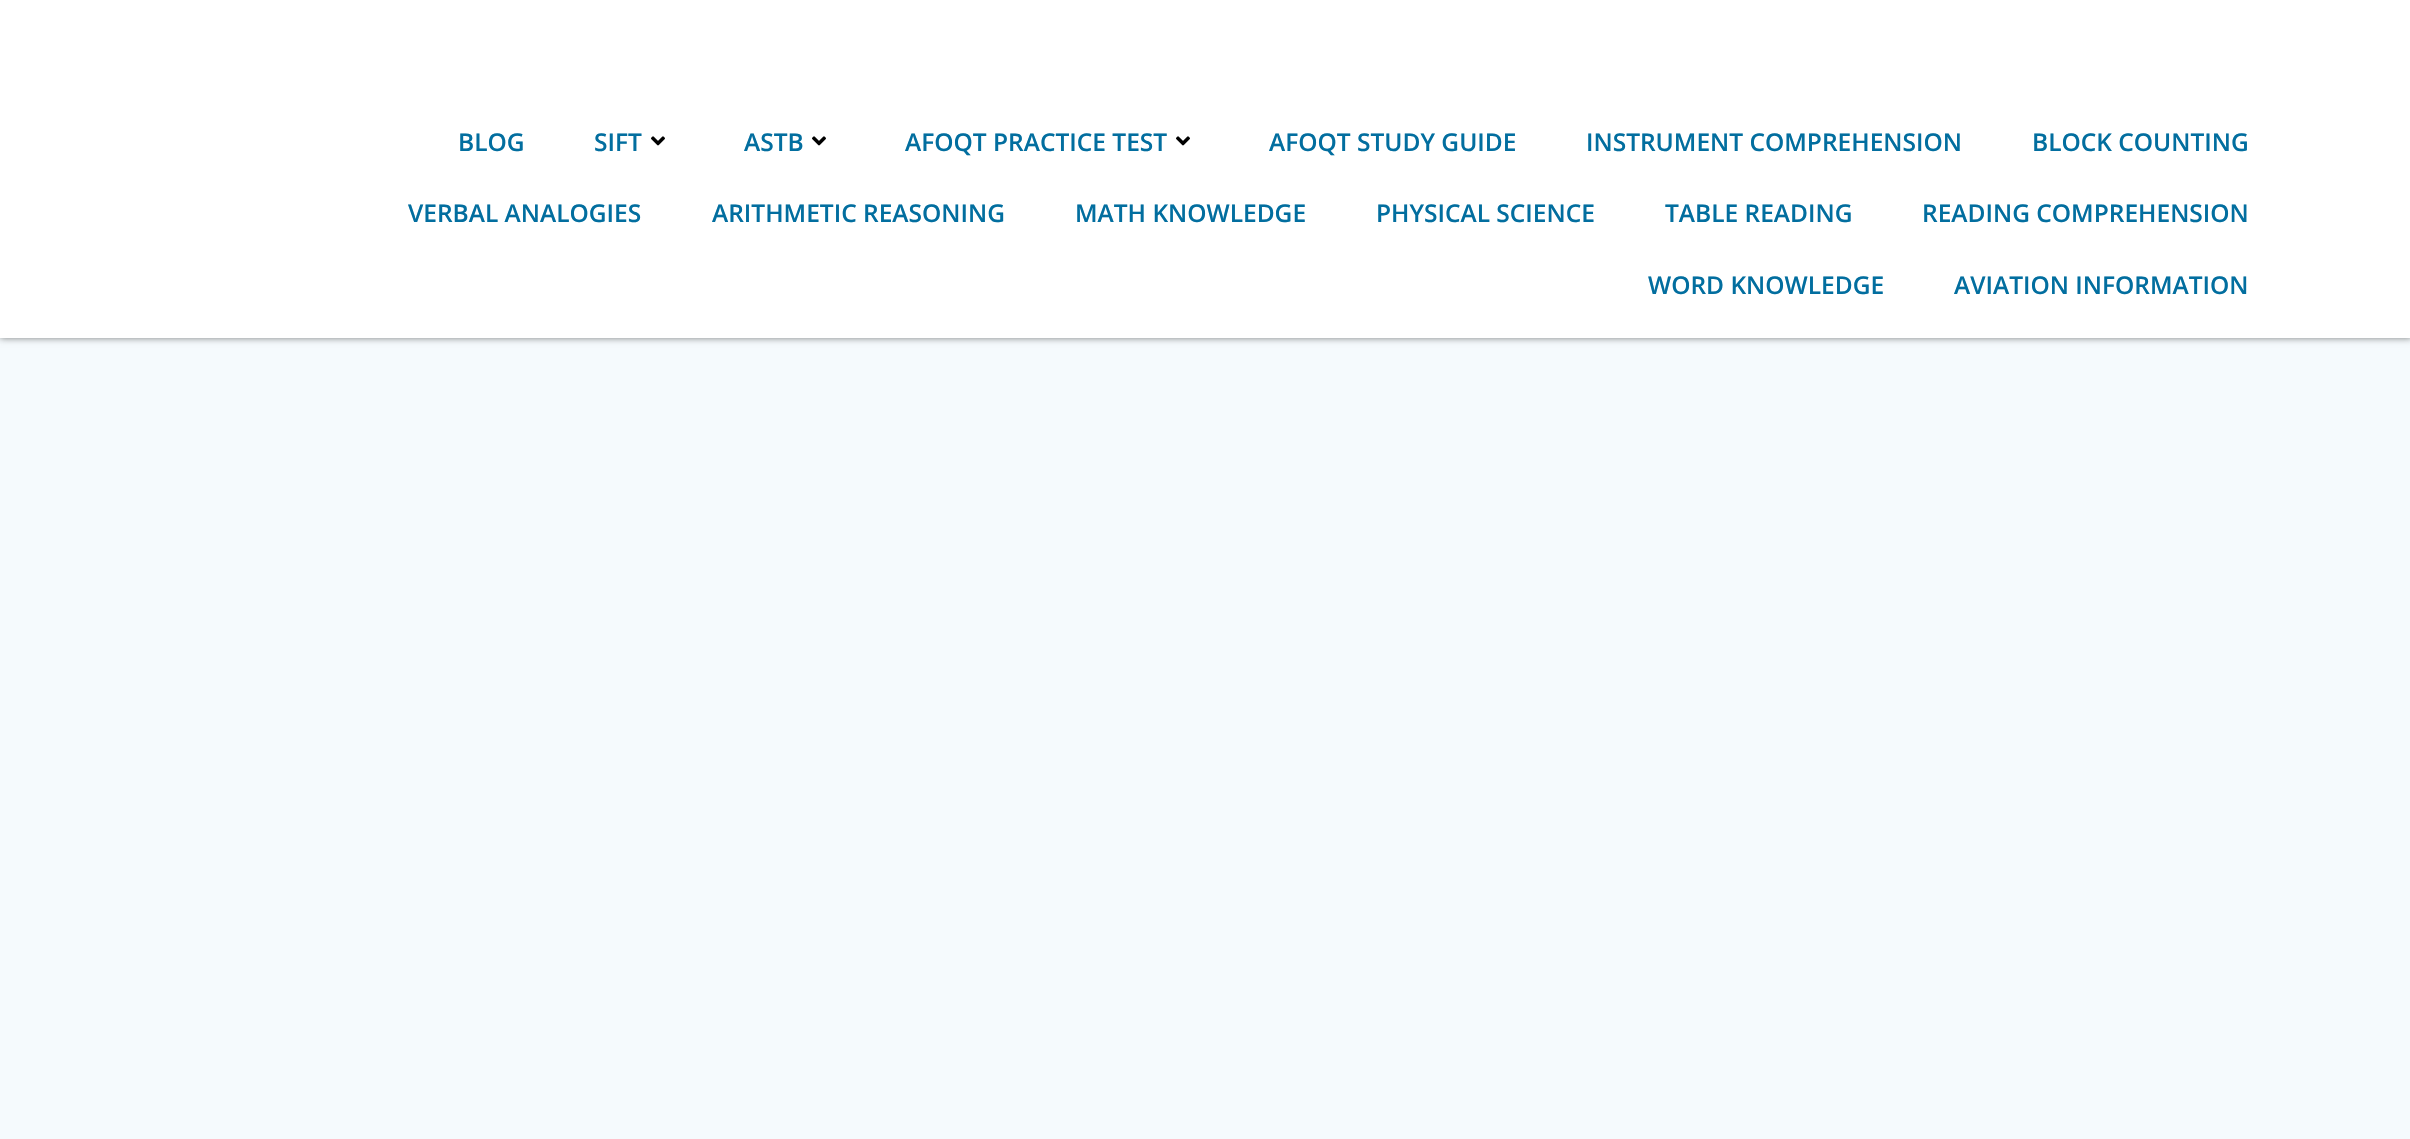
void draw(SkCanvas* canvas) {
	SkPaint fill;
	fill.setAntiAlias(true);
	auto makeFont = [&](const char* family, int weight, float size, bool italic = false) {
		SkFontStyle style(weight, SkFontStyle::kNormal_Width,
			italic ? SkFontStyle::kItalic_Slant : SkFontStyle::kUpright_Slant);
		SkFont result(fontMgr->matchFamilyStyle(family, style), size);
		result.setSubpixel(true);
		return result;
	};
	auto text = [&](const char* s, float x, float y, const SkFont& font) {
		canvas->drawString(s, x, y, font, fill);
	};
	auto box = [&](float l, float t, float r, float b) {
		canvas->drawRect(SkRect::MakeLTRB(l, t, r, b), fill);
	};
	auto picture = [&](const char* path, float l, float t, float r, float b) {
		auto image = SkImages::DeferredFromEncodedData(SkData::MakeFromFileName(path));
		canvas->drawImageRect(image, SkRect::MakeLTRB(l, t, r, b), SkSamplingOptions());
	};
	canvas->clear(0xFFF5FAFD);
	fill.setColor(0x80000000);
	fill.setMaskFilter(SkMaskFilter::MakeBlur(kNormal_SkBlurStyle, 3.5f));
	canvas->drawRect(SkRect::MakeLTRB(0, 0, 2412, 338), fill);
	fill.setMaskFilter(nullptr);
	fill.setColor(0xFFFFFFFF);
	box(0, 0, 2410, 338);
	picture("image0.png", 651, 136, 665, 146);
	picture("image0.png", 812, 136, 826, 146);
	picture("image0.png", 1176, 136, 1190, 146);
	auto font1 = makeFont("Open Sans", 600, 24.5f);
	fill.setColor(0xFF026E9F);
	text("BLOG", 458, 151, font1);
	text("SIFT", 594, 151, font1);
	text("ASTB", 744, 151, font1);
	text("AFOQT PRACTICE TEST", 905, 151, font1);
	text("AFOQT STUDY GUIDE", 1269, 151, font1);
	text("INSTRUMENT COMPREHENSION", 1586, 151, font1);
	text("BLOCK COUNTING", 2032, 151, font1);
	text("VERBAL ANALOGIES", 408, 222, font1);
	text("ARITHMETIC REASONING", 712, 222, font1);
	text("MATH KNOWLEDGE", 1075, 222, font1);
	text("PHYSICAL SCIENCE", 1376, 222, font1);
	text("TABLE READING", 1665, 222, font1);
	text("READING COMPREHENSION", 1922, 222, font1);
	text("WORD KNOWLEDGE", 1648, 294, font1);
	text("AVIATION INFORMATION", 1954, 294, font1);
}
